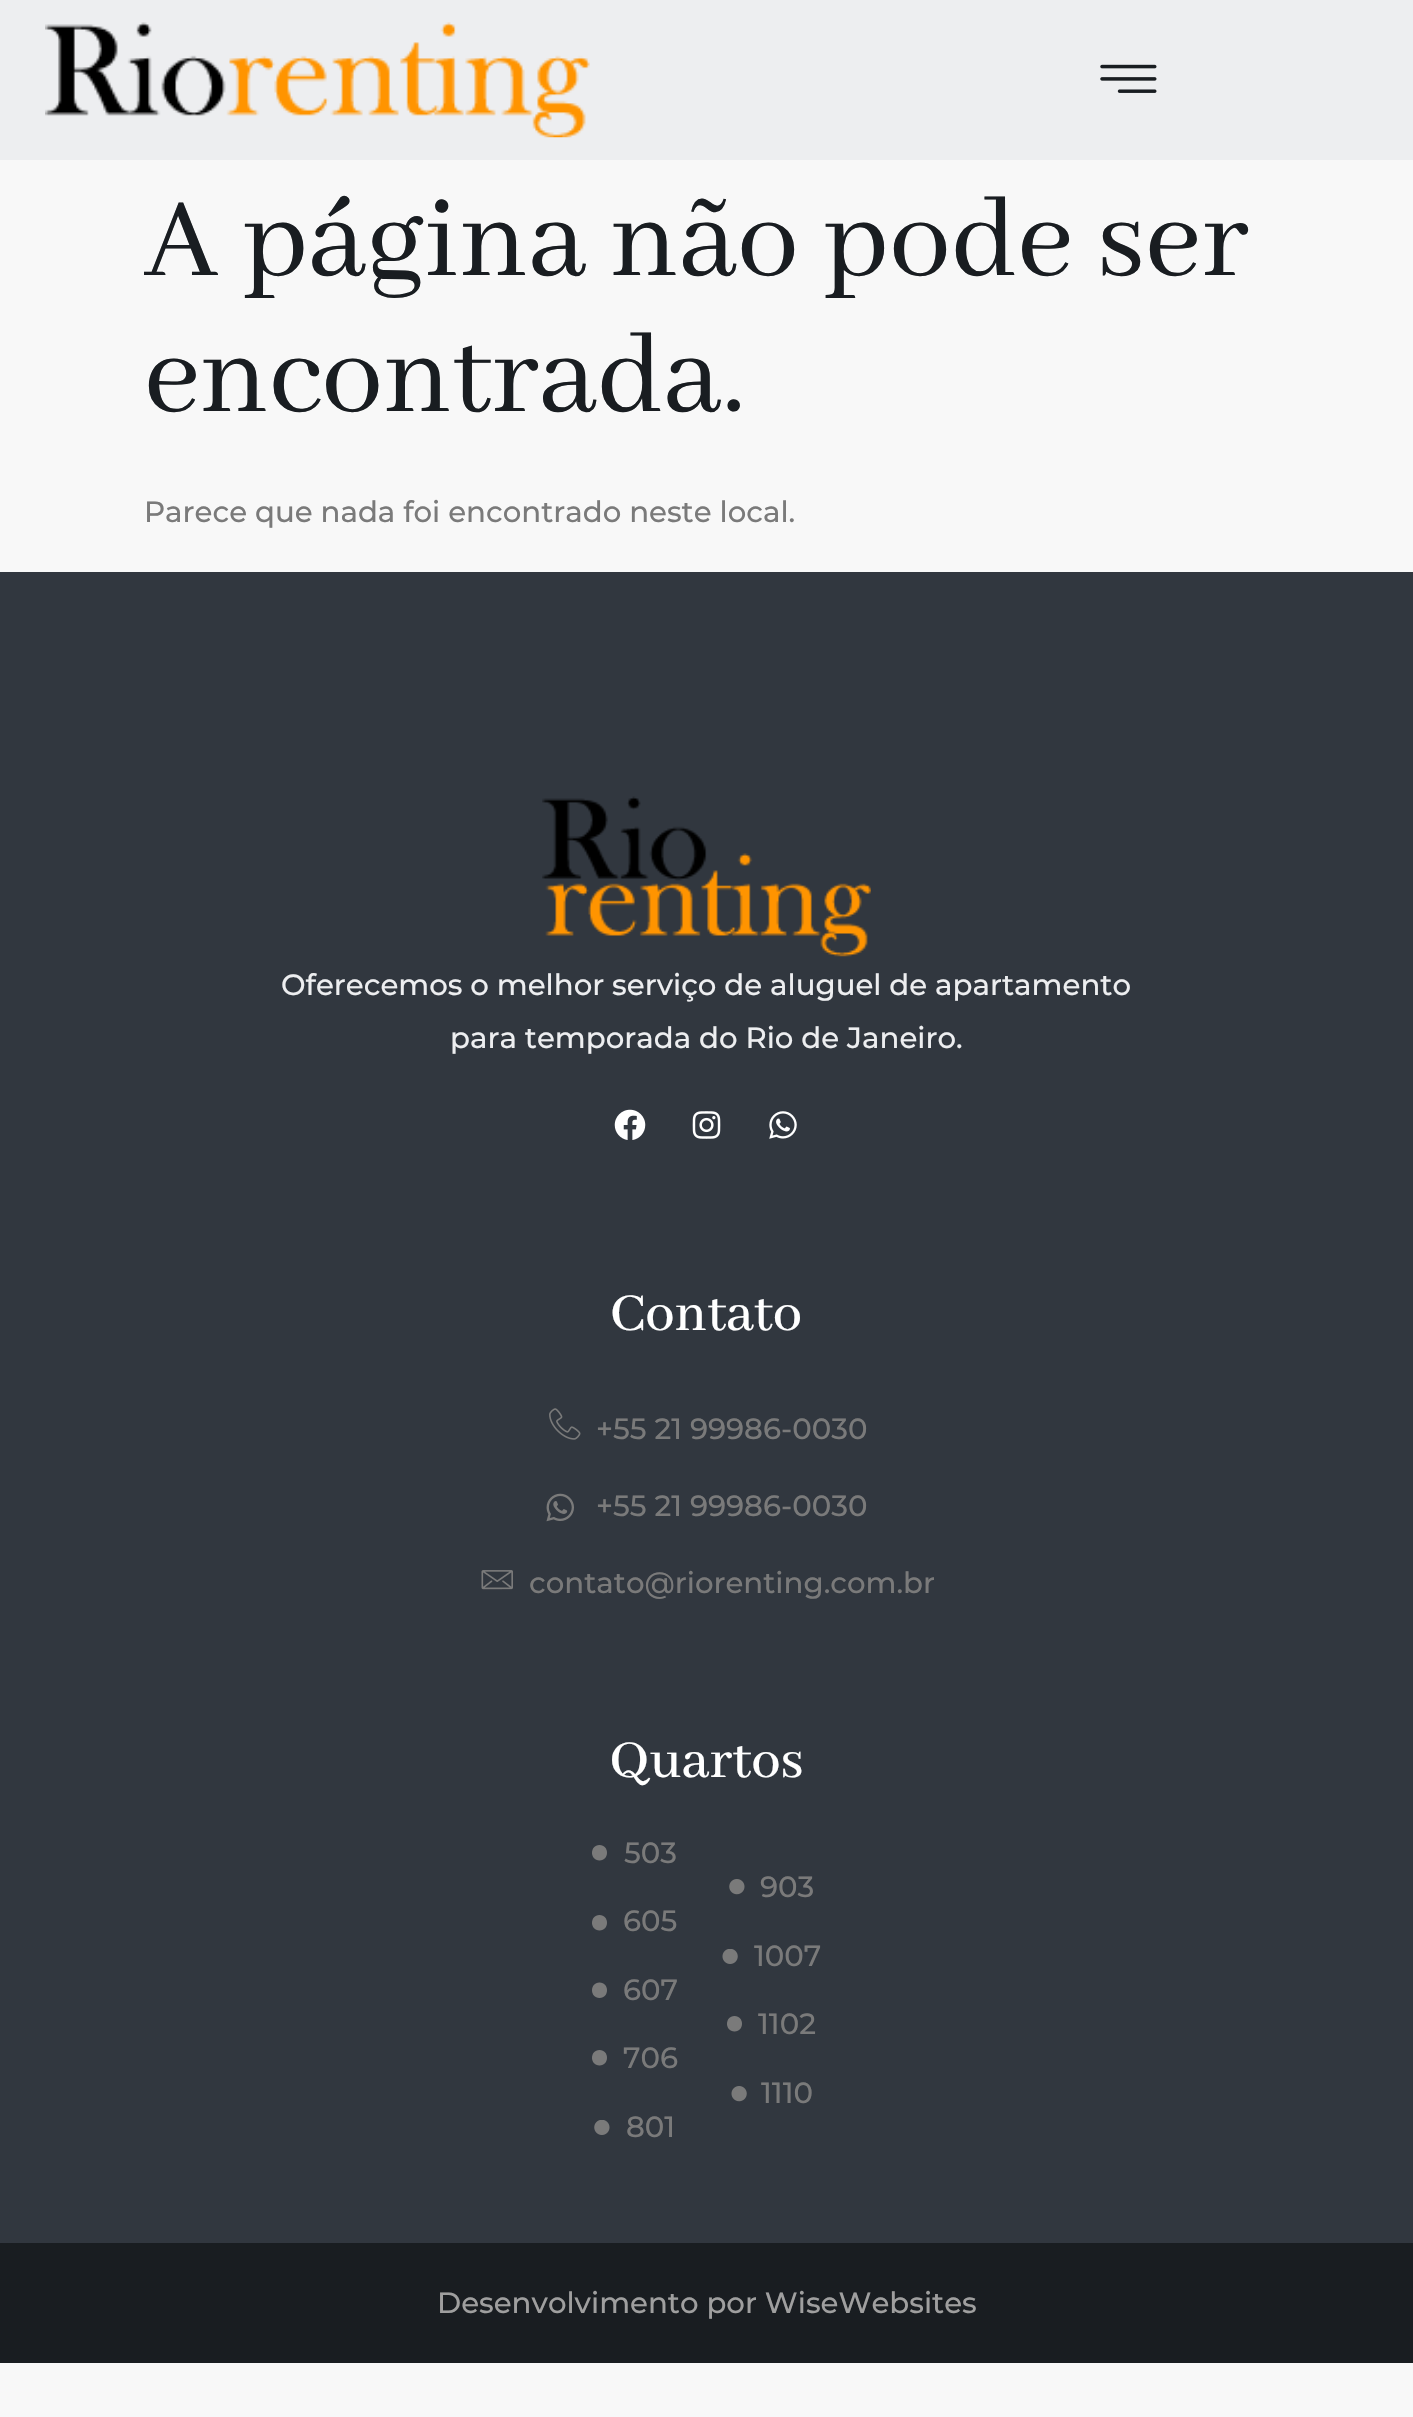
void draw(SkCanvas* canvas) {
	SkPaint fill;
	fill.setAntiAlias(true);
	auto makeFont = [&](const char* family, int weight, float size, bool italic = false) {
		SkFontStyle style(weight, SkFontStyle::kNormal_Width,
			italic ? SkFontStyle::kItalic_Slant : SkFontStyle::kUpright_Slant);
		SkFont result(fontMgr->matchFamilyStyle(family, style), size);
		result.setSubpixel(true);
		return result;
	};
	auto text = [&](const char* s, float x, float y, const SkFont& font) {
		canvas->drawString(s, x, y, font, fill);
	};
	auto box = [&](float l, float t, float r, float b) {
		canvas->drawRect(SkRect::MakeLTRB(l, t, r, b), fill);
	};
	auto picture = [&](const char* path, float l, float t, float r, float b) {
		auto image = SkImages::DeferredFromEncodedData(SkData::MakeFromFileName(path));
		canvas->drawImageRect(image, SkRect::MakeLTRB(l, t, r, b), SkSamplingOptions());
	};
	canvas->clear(0xFFF8F8F8);
	fill.setColor(0xFFEDEEF0);
	box(0, 0, 1413, 160);
	picture("image0.png", 45, 22, 590, 138);
	picture("image1.png", 1100, 64, 1157, 93);
	fill.setColor(0xFF31373F);
	box(0, 572, 1413, 2243);
	picture("image2.png", 542, 796, 871, 957);
	picture("image3.png", 614, 1109, 646, 1140);
	picture("image4.png", 692, 1111, 721, 1139);
	picture("image5.png", 769, 1111, 797, 1139);
	picture("image6.png", 549, 1408, 581, 1440);
	picture("image7.png", 546, 1493, 574, 1522);
	picture("image8.png", 481, 1570, 513, 1590);
	fill.setColor(0xFF7A7A7A);
	canvas->drawPath(SkPathBuilder().moveTo(599.5f, 1845).cubicTo(589.5f, 1845, 589.5f, 1860.5f, 599.5f, 1860.5f).cubicTo(609.5f, 1860.5f, 609.5f, 1845, 599.5f, 1845).close().detach(), fill);
	canvas->drawPath(SkPathBuilder().moveTo(599.5f, 1915).cubicTo(589.5f, 1915, 589.5f, 1930.5f, 599.5f, 1930.5f).cubicTo(609.5f, 1930.5f, 609.5f, 1915, 599.5f, 1915).close().detach(), fill);
	canvas->drawPath(SkPathBuilder().moveTo(599.5f, 1982.5f).cubicTo(589.5f, 1982.5f, 589.5f, 1998, 599.5f, 1998).cubicTo(609.5f, 1998, 609.5f, 1982.5f, 599.5f, 1982.5f).close().detach(), fill);
	canvas->drawPath(SkPathBuilder().moveTo(599.5f, 2050).cubicTo(589.5f, 2050, 589.5f, 2065.5f, 599.5f, 2065.5f).cubicTo(609.5f, 2065.5f, 609.5f, 2050, 599.5f, 2050).close().detach(), fill);
	picture("image9.png", 594, 2120, 610, 2135);
	picture("image10.png", 729, 1879, 745, 1895);
	picture("image11.png", 722, 1949, 738, 1964);
	canvas->drawPath(SkPathBuilder().moveTo(734.5f, 2016).cubicTo(724.5f, 2016, 724.5f, 2031.5f, 734.5f, 2031.5f).cubicTo(744.5f, 2031.5f, 744.5f, 2016, 734.5f, 2016).close().detach(), fill);
	picture("image12.png", 731, 2086, 747, 2102);
	fill.setColor(0xFF191D21);
	box(0, 2243, 1413, 2363);
	auto font1 = makeFont("Abhaya Libre", 400, 123.75f);
	text("A página não pode ser", 144, 275, font1);
	text("encontrada.", 144, 411, font1);
	auto font2 = makeFont("Montserrat", 500, 29.25f);
	fill.setColor(0xFF7A7A7A);
	text("Parece que nada foi encontrado neste local.", 144, 522, font2);
	fill.setColor(0xFFEDEEF0);
	text("Oferecemos o melhor serviço de aluguel de apartamento", 281, 995, font2);
	text("para temporada do Rio de Janeiro.", 450, 1048, font2);
	auto font3 = makeFont("Abhaya Libre Medium", 500, 58.5f);
	fill.setColor(0xFFFFFFFF);
	text("Contato", 610, 1330, font3);
	fill.setColor(0xFF7A7A7A);
	text("+55 21 99986-0030", 596, 1439, font2);
	text("+55 21 99986-0030", 596, 1516, font2);
	text("contato@riorenting.com.br", 529, 1593, font2);
	fill.setColor(0xFFFFFFFF);
	text("Quartos", 609, 1777, font3);
	fill.setColor(0xFF7A7A7A);
	text("503", 624, 1863, font2);
	text("605", 623, 1931, font2);
	text("607", 623, 2000, font2);
	text("706", 623, 2068, font2);
	text("801", 626, 2137, font2);
	text("903", 760, 1897, font2);
	text("1007", 754, 1966, font2);
	text("1102", 758, 2034, font2);
	text("1110", 761, 2103, font2);
	fill.setColor(0xFF9F9F9F);
	text("Desenvolvimento por WiseWebsites", 437, 2313, font2);
}
